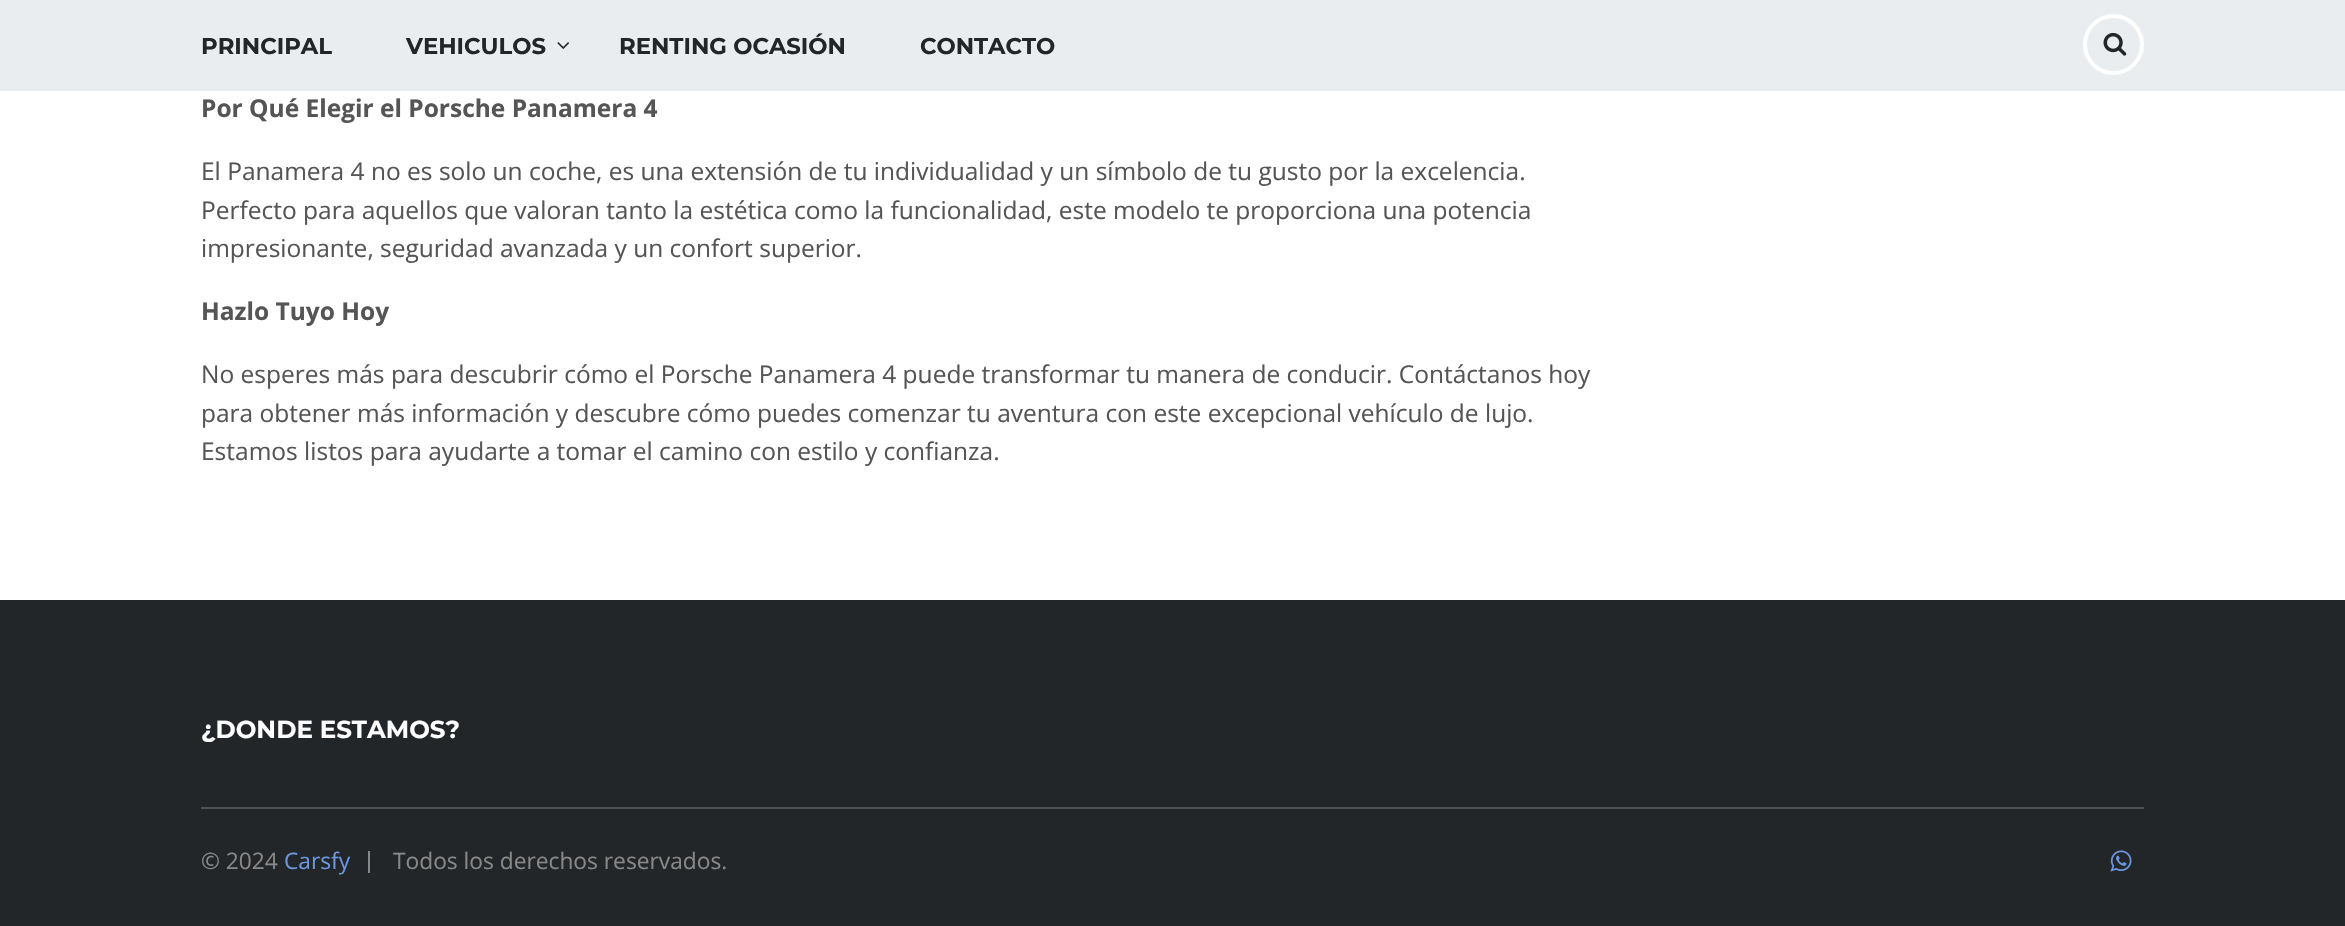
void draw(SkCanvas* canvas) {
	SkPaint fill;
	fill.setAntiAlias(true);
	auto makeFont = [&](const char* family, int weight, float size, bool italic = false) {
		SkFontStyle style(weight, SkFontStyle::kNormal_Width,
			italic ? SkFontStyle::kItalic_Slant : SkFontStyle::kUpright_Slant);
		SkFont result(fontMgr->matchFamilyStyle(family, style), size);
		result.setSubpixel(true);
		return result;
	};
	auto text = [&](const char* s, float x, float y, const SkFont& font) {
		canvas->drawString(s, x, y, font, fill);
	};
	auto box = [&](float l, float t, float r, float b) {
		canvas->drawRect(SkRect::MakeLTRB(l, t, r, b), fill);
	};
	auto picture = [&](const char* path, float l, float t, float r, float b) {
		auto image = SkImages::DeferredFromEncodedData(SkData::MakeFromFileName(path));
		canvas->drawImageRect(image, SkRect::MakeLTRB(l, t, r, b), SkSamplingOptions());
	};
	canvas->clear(0xFFFFFFFF);
	fill.setColor(0xFFEAEDF0);
	box(0, 0, 2345, 91);
	picture("image0.png", 557, 42, 569, 49);
	fill.setStyle(SkPaint::kStroke_Style);
	fill.setStrokeWidth(4);
	fill.setColor(0xFFFFFFFF);
	canvas->drawCircle(2113.5f, 44.5f, 28.5f, fill);
	picture("image1.png", 2103, 32, 2127, 56);
	fill.setStyle(SkPaint::kFill_Style);
	fill.setColor(0xFF232628);
	box(0, 600, 2345, 926);
	fill.setColor(0xFF4F5153);
	box(201, 807, 2144, 809);
	fill.setColor(0xFF888888);
	box(368, 851, 370, 873);
	picture("image2.png", 2110, 850, 2132, 872);
	auto font1 = makeFont("Montserrat", 700, 22.75f);
	fill.setColor(0xFF232628);
	text("PRINCIPAL", 201, 54, font1);
	text("VEHICULOS", 406, 54, font1);
	text("RENTING OCASIÓN", 619, 54, font1);
	text("CONTACTO", 920, 54, font1);
	auto font2 = makeFont("Open Sans", 700, 24.5f);
	fill.setColor(0xFF555555);
	text("Por Qué Elegir el Porsche Panamera 4", 201, 117, font2);
	auto font3 = makeFont("Open Sans", 400, 24.5f);
	text("El Panamera 4 no es solo un coche, es una extensión de tu individualidad y un símbolo de tu gusto por la excelencia.", 201, 180, font3);
	text("Perfecto para aquellos que valoran tanto la estética como la funcionalidad, este modelo te proporciona una potencia", 201, 219, font3);
	text("impresionante, seguridad avanzada y un confort superior.", 201, 257, font3);
	text("Hazlo Tuyo Hoy", 201, 320, font2);
	text("No esperes más para descubrir cómo el Porsche Panamera 4 puede transformar tu manera de conducir. Contáctanos hoy", 201, 383, font3);
	text("para obtener más información y descubre cómo puedes comenzar tu aventura con este excepcional vehículo de lujo.", 201, 422, font3);
	text("Estamos listos para ayudarte a tomar el camino con estilo y confianza.", 201, 460, font3);
	auto font4 = makeFont("Montserrat", 700, 24.5f);
	fill.setColor(0xFFFFFFFF);
	text("¿DONDE ESTAMOS?", 201, 738, font4);
	auto font5 = makeFont("Open Sans", 400, 22.75f);
	fill.setColor(0xFF888888);
	text("© 2024", 201, 869, font5);
	fill.setColor(0xFF6C98E1);
	text("Carsfy", 284, 869, font5);
	fill.setColor(0xFF888888);
	text("Todos los derechos reservados.", 393, 869, font5);
}
